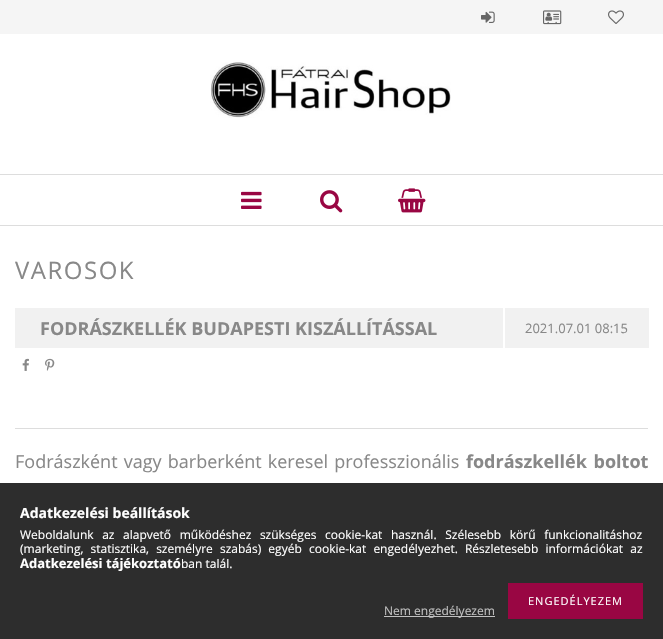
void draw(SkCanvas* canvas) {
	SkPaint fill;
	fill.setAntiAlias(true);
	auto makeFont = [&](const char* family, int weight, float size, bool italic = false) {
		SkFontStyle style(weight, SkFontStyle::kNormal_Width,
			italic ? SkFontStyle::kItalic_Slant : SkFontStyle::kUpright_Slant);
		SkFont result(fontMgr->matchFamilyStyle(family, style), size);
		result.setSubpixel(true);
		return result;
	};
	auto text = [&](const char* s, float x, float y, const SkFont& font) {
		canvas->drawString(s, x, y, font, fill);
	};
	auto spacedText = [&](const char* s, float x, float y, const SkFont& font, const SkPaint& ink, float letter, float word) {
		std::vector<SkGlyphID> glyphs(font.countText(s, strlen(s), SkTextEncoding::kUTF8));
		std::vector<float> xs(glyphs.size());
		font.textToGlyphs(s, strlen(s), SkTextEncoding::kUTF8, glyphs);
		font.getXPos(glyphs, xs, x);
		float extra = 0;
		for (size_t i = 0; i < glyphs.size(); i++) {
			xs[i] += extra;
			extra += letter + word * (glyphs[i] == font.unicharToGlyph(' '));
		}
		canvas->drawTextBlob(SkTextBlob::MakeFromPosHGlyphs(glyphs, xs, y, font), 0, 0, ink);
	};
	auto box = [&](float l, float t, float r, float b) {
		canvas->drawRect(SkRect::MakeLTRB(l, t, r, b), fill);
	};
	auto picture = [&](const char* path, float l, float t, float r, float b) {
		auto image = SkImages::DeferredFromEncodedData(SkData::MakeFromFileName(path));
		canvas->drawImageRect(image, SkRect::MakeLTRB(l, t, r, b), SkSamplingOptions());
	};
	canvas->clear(0xFFFFFFFF);
	fill.setColor(0xFFF5F5F5);
	box(0, 0, 663, 34);
	picture("image0.png", 481, 11, 495, 23);
	picture("image1.png", 543, 10, 562, 25);
	picture("image2.png", 608, 10, 624, 24);
	picture("image3.png", 210, 62, 451, 118);
	fill.setColor(0xFFDDDDDD);
	box(0, 174, 663, 175);
	box(0, 225, 663, 226);
	picture("image4.png", 241, 191, 262, 209);
	picture("image5.png", 320, 190, 343, 213);
	picture("image6.png", 398, 188, 426, 213);
	fill.setColor(0xFFF1F1F1);
	box(15, 308, 503, 348);
	box(505, 308, 649, 348);
	picture("image7.png", 22, 358, 29, 371);
	picture("image8.png", 45, 358, 55, 371);
	fill.setColor(0xFFDDDDDD);
	box(15, 428, 648, 429);
	fill.setColor(0xF2222222);
	box(0, 483, 663, 639);
	fill.setColor(0xFF990643);
	box(508, 583, 643, 619);
	fill.setColor(0xFFC0C0C0);
	box(384, 616, 495, 617);
	auto font1 = makeFont("Open Sans", 400, 24);
	fill.setColor(0xFF888888);
	spacedText("VAROSOK", 15, 279, font1, fill, 1.5f, 0);
	auto font2 = makeFont("Open Sans", 700, 18);
	text("FODRÁSZKELLÉK BUDAPESTI KISZÁLLÍTÁSSAL", 40, 335, font2);
	auto font3 = makeFont("Open Sans", 400, 13);
	text("2021.07.01 08:15", 525, 333, font3);
	auto font4 = makeFont("Open Sans", 400, 18);
	spacedText("Fodrászként vagy barberként keresel professzionális", 15, 468, font4, fill, 0, 1.5f);
	spacedText("fodrászkellék boltot", 466, 468, font2, fill, 0, 2);
	auto font5 = makeFont("Open Sans", 700, 14);
	fill.setColor(0xFFFFFFFF);
	text("Adatkezelési beállítások", 20, 518, font5);
	auto font6 = makeFont("Open Sans", 400, 12);
	spacedText("Weboldalunk az alapvető működéshez szükséges cookie-kat használ. Szélesebb körű funkcionalitáshoz", 20, 539, font6, fill, 0, 5.5f);
	spacedText("(marketing, statisztika, személyre szabás) egyéb cookie-kat engedélyezhet. Részletesebb információkat az", 20, 553, font6, fill, 0, 4);
	auto font7 = makeFont("Open Sans", 700, 13);
	text("Adatkezelési tájékoztató", 20, 568, font7);
	text("ban talál.", 181, 568, font6);
	auto font8 = makeFont("Open Sans", 400, 11);
	spacedText("ENGEDÉLYEZEM", 528, 605, font8, fill, 1, 0);
	fill.setColor(0xFFC0C0C0);
	text("Nem engedélyezem", 384, 615, font6);
}
